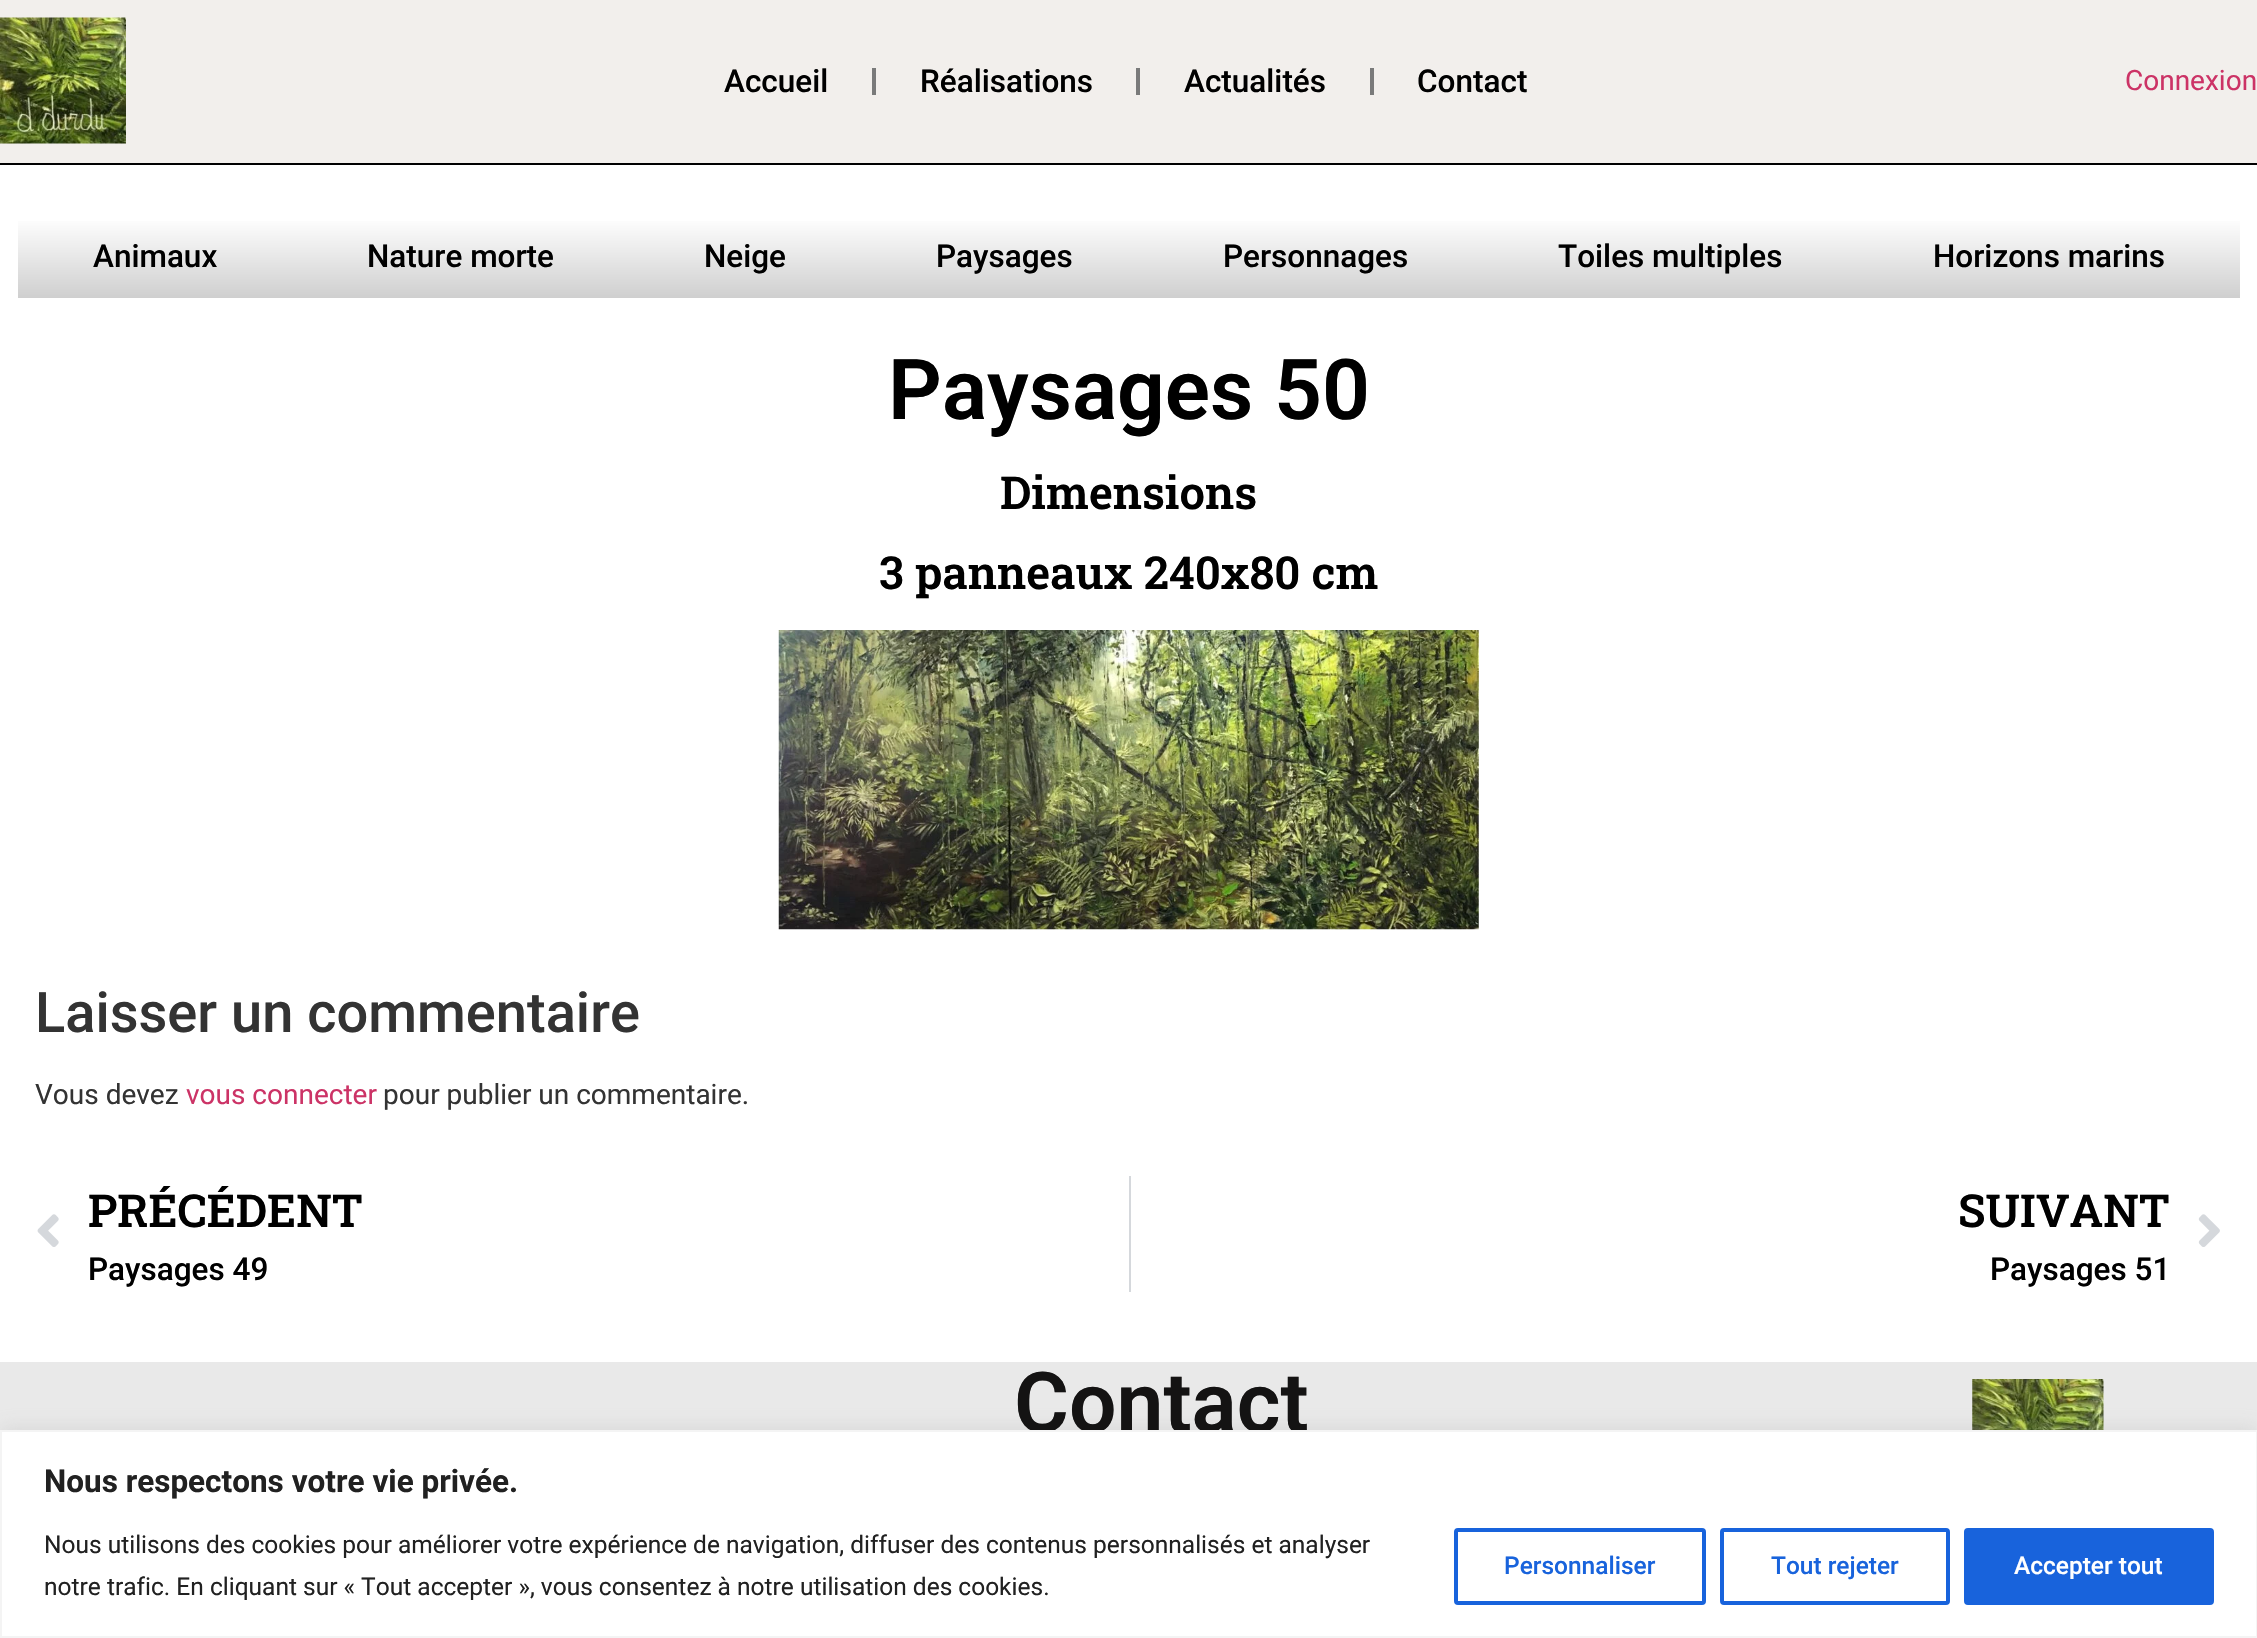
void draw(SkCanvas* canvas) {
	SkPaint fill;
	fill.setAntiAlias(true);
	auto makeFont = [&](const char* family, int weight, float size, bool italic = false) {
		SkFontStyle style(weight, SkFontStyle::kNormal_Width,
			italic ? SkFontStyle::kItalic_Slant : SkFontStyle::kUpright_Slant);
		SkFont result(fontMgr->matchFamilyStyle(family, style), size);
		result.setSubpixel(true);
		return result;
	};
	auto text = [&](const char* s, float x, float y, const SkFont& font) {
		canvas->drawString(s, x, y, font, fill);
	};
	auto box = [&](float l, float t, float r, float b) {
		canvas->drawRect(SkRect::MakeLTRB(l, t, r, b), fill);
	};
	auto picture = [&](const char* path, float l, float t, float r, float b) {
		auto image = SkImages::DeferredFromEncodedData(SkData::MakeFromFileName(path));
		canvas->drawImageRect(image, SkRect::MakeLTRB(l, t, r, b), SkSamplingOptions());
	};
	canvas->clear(0xFFFFFFFF);
	fill.setColor(0xFFF2EFEC);
	box(0, 0, 2257, 163);
	fill.setColor(0xFF000000);
	box(0, 163, 2257, 165);
	picture("image0.png", 0, 17, 126, 144);
	fill.setColor(0xFF7A7A7A);
	box(872, 68, 876, 95);
	box(1136, 68, 1140, 95);
	box(1370, 68, 1374, 95);
	{
		const SkColor colors[] = {0xFFFFFFFF, 0xFFCFCFCF};
		const float stops[] = {0, 1};
		const SkPoint ends[] = {{1129, 217}, {1129, 298}};
		fill.setShader(SkGradientShader::MakeLinear(ends, colors, stops, 2, SkTileMode::kClamp));
		fill.setAlpha(255);
	}
	box(18, 221, 2240, 298);
	picture("image1.png", 778, 630, 1479, 930);
	picture("image2.png", 37, 1214, 59, 1247);
	fill.setShader(nullptr);
	fill.setColor(0xFFD5D8DC);
	box(1129, 1176, 1131, 1292);
	picture("image3.png", 2198, 1214, 2220, 1247);
	fill.setColor(0xFFE9E9E9);
	box(0, 1362, 2257, 1430);
	picture("image4.png", 1972, 1379, 2104, 1430);
	fill.setColor(0x4DACABAB);
	fill.setMaskFilter(SkMaskFilter::MakeBlur(kNormal_SkBlurStyle, 9));
	canvas->drawRect(SkRect::MakeLTRB(0, 1428, 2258, 1636), fill);
	fill.setMaskFilter(nullptr);
	auto font1 = makeFont("Roboto", 500, 31.5f);
	fill.setColor(0xFF000000);
	text("Accueil", 724, 92, font1);
	text("Réalisations", 920, 92, font1);
	text("Actualités", 1184, 92, font1);
	text("Contact", 1417, 92, font1);
	auto font2 = makeFont("Roboto", 400, 28);
	fill.setColor(0xFFCC3366);
	text("Connexion", 2125, 90, font2);
	fill.setColor(0xFF000000);
	text("Animaux", 93, 267, font1);
	text("Nature morte", 367, 267, font1);
	text("Neige", 704, 267, font1);
	text("Paysages", 936, 267, font1);
	text("Personnages", 1223, 267, font1);
	text("Toiles multiples", 1558, 267, font1);
	text("Horizons marins", 1933, 267, font1);
	auto font3 = makeFont("Roboto", 600, 84);
	text("Paysages 50", 888, 419, font3);
	auto font4 = makeFont("Roboto Slab", 600, 45.5f);
	text("Dimensions", 1000, 509, font4);
	text("3 panneaux 240x80 cm", 879, 589, font4);
	auto font5 = makeFont("Roboto", 500, 56);
	fill.setColor(0xFF333333);
	text("Laisser un commentaire", 35, 1032, font5);
	text("Vous devez", 35, 1104, font2);
	fill.setColor(0xFFCC3366);
	text("vous connecter", 186, 1104, font2);
	fill.setColor(0xFF333333);
	text("pour publier un commentaire.", 383, 1104, font2);
	fill.setColor(0xFF000000);
	text("PRÉCÉDENT", 88, 1227, font4);
	text("Paysages 49", 88, 1280, font1);
	text("SUIVANT", 1958, 1227, font4);
	text("Paysages 51", 1990, 1280, font1);
	fill.setColor(0xFF141313);
	text("Contact", 1014, 1432, font3);
	fill.setColor(0xFFFFFFFF);
	canvas->drawRect(SkRect::MakeLTRB(1, 1431, 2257, 1637), fill);
	fill.setStyle(SkPaint::kStroke_Style);
	fill.setStrokeWidth(2);
	fill.setColor(0xFFF4F4F4);
	canvas->drawRect(SkRect::MakeLTRB(1, 1431, 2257, 1637), fill);
	auto font6 = makeFont("Roboto", 700, 31.5f);
	fill.setStyle(SkPaint::kFill_Style);
	fill.setColor(0xFF212121);
	text("Nous respectons votre vie privée.", 44, 1492, font6);
	auto font7 = makeFont("Roboto", 400, 24.5f);
	text("Nous utilisons des cookies pour améliorer votre expérience de navigation, diffuser des contenus personnalisés et analyser", 44, 1553, font7);
	text("notre trafic. En cliquant sur « Tout accepter », vous consentez à notre utilisation des cookies.", 44, 1595, font7);
	fill.setStyle(SkPaint::kStroke_Style);
	fill.setStrokeWidth(4);
	fill.setColor(0xFF1863DC);
	canvas->drawRoundRect(SkRect::MakeLTRB(1456, 1530, 1704, 1603), 2, 2, fill);
	auto font8 = makeFont("Roboto", 500, 24.5f);
	fill.setStyle(SkPaint::kFill_Style);
	text("Personnaliser", 1504, 1574, font8);
	fill.setStyle(SkPaint::kStroke_Style);
	canvas->drawRoundRect(SkRect::MakeLTRB(1722, 1530, 1948, 1603), 2, 2, fill);
	fill.setStyle(SkPaint::kFill_Style);
	text("Tout rejeter", 1771, 1574, font8);
	canvas->drawRoundRect(SkRect::MakeLTRB(1966, 1530, 2212, 1603), 2, 2, fill);
	fill.setStyle(SkPaint::kStroke_Style);
	canvas->drawRoundRect(SkRect::MakeLTRB(1966, 1530, 2212, 1603), 2, 2, fill);
	fill.setStyle(SkPaint::kFill_Style);
	fill.setColor(0xFFFFFFFF);
	text("Accepter tout", 2014, 1574, font8);
}
